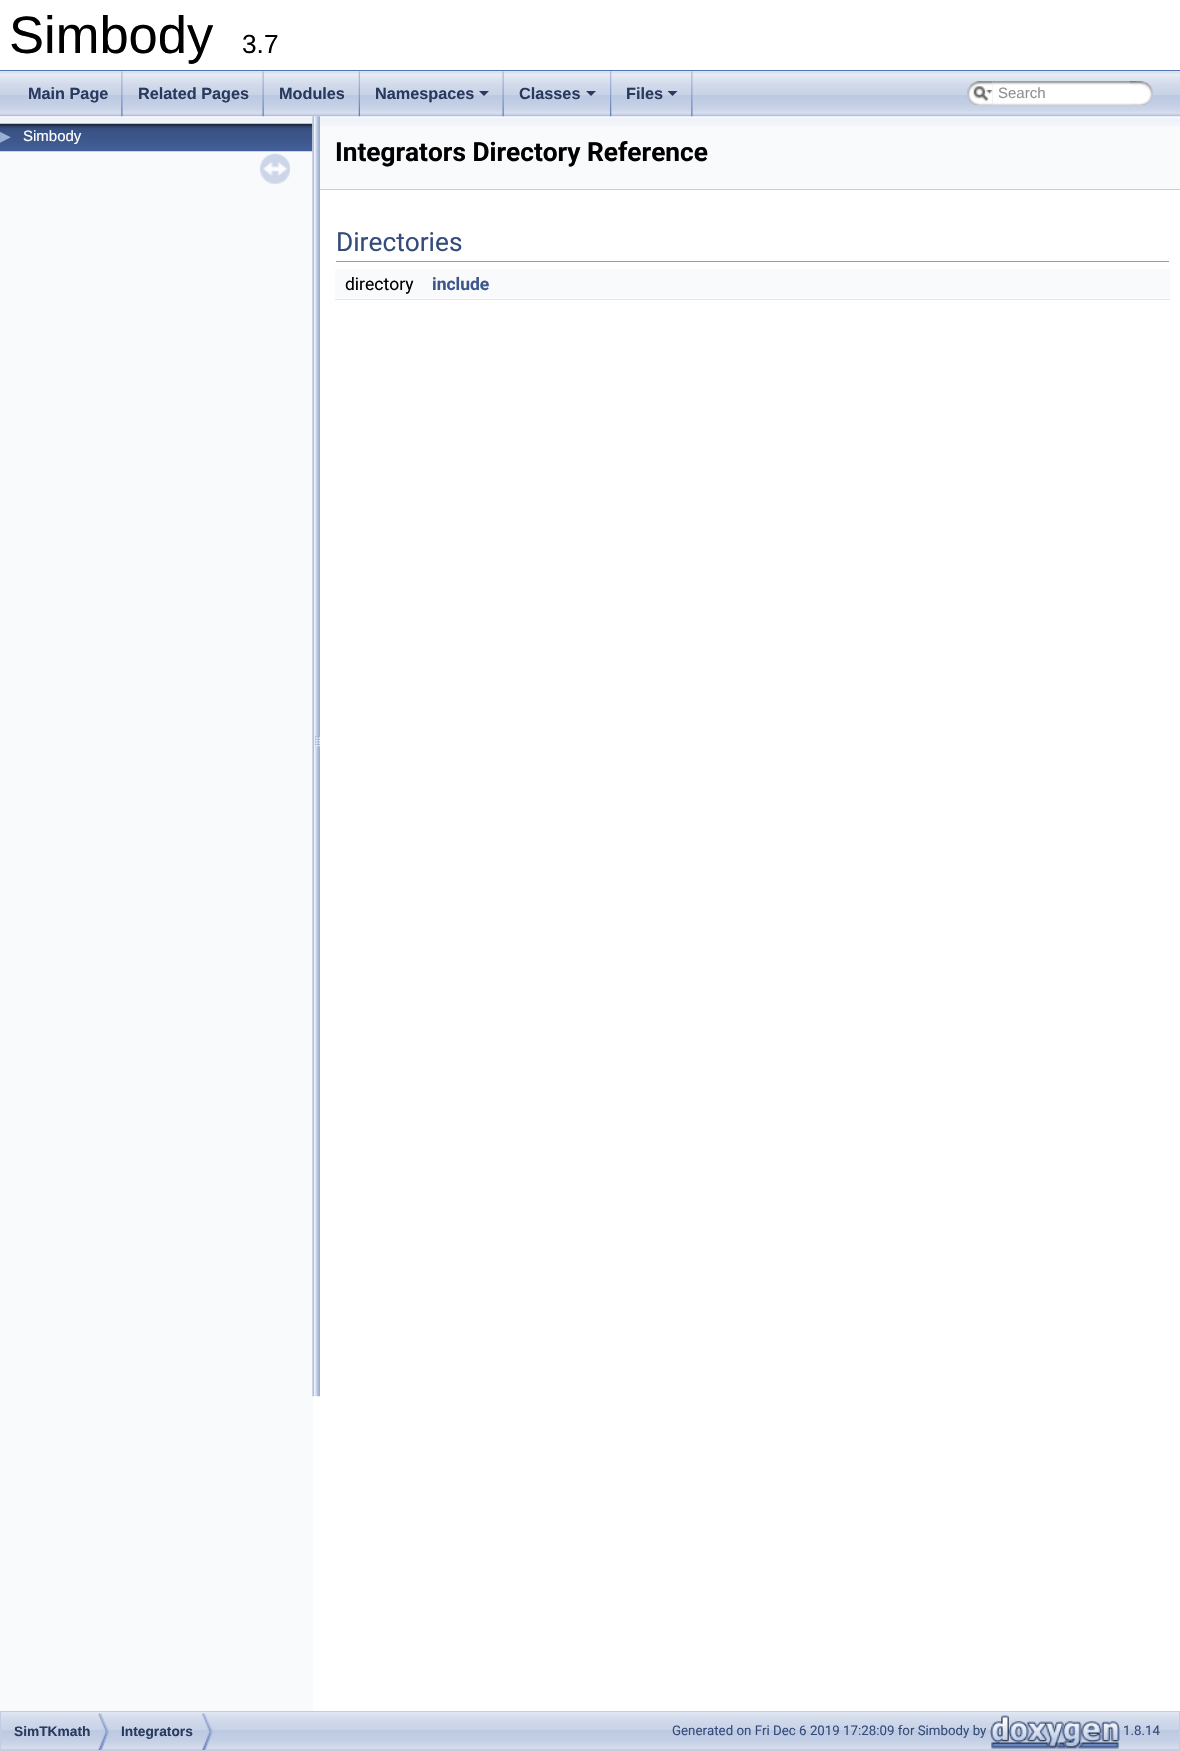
void draw(SkCanvas* canvas) {
	SkPaint fill;
	fill.setAntiAlias(true);
	auto makeFont = [&](const char* family, int weight, float size, bool italic = false) {
		SkFontStyle style(weight, SkFontStyle::kNormal_Width,
			italic ? SkFontStyle::kItalic_Slant : SkFontStyle::kUpright_Slant);
		SkFont result(fontMgr->matchFamilyStyle(family, style), size);
		result.setSubpixel(true);
		return result;
	};
	auto text = [&](const char* s, float x, float y, const SkFont& font) {
		canvas->drawString(s, x, y, font, fill);
	};
	auto box = [&](float l, float t, float r, float b) {
		canvas->drawRect(SkRect::MakeLTRB(l, t, r, b), fill);
	};
	auto picture = [&](const char* path, float l, float t, float r, float b) {
		auto image = SkImages::DeferredFromEncodedData(SkData::MakeFromFileName(path));
		canvas->drawImageRect(image, SkRect::MakeLTRB(l, t, r, b), SkSamplingOptions());
	};
	canvas->clear(0xFFFFFFFF);
	fill.setColor(0xFF5373B4);
	box(0, 70, 1180, 71);
	fill.setColor(0xFFF9FAFC);
	box(0, 116, 313, 1711);
	picture("image11.png", 0, 116, 313, 126);
	picture("image12.png", 0, 123, 313, 152);
	picture("image14.png", 312, 116, 320, 1397);
	box(320, 116, 1180, 189);
	picture("image0.png", 0, 71, 1180, 117);
	picture("image1.png", 121, 71, 123, 117);
	picture("image2.png", 262, 71, 264, 117);
	picture("image3.png", 358, 71, 360, 117);
	picture("image4.png", 502, 71, 504, 117);
	fill.setColor(0xFF283A5D);
	canvas->drawPath(SkPathBuilder().moveTo(479, 91).lineTo(489, 91).lineTo(484, 96).close().detach(), fill);
	picture("image5.png", 610, 71, 612, 117);
	canvas->drawPath(SkPathBuilder().moveTo(586, 91).lineTo(596, 91).lineTo(591, 96).close().detach(), fill);
	picture("image6.png", 691, 71, 693, 117);
	canvas->drawPath(SkPathBuilder().moveTo(667.5f, 91).lineTo(677.5f, 91).lineTo(672.5f, 96).close().detach(), fill);
	picture("image7.png", 967, 81, 993, 105);
	picture("image8.png", 973, 86, 993, 102);
	picture("image9.png", 992, 81, 1137, 105);
	picture("image10.png", 1130, 81, 1153, 105);
	picture("image13.png", 260, 153, 290, 184);
	picture("image15.png", 320, 118, 1180, 126);
	fill.setColor(0xFFC4CFE5);
	box(320, 189, 1180, 190);
	fill.setColor(0xFF879ECB);
	box(336, 261, 1169, 262);
	fill.setColor(0xFFF9FAFC);
	box(335, 269, 1170, 298);
	fill.setColor(0xFFDEE4F0);
	box(335, 299, 1170, 300);
	picture("image16.png", 1, 1712, 1179, 1750);
	fill.setStyle(SkPaint::kStroke_Style);
	fill.setStrokeWidth(1);
	fill.setColor(0xFFC2CDE4);
	canvas->drawRect(SkRect::MakeLTRB(0.5f, 1711.5f, 1179.5f, 1750.5f), fill);
	picture("image17.png", 98, 1713, 109, 1750);
	picture("image18.png", 202, 1713, 213, 1750);
	picture("image19.png", 990, 1715, 1120, 1749);
	auto font1 = makeFont("Liberation Sans", 400, 52.5f);
	fill.setStyle(SkPaint::kFill_Style);
	fill.setColor(0xFF000000);
	text("Simbody", 9, 53, font1);
	auto font2 = makeFont("Liberation Sans", 400, 26.25f);
	text("3.7", 242, 53, font2);
	auto font3 = makeFont("Liberation Sans", 700, 16.25f);
	fill.setColor(0xFF283A5D);
	text("Main Page", 28, 99, font3);
	text("Related Pages", 138, 99, font3);
	text("Modules", 279, 99, font3);
	text("Namespaces", 375, 99, font3);
	text("Classes", 519, 99, font3);
	text("Files", 626, 99, font3);
	auto font4 = makeFont("Liberation Sans", 400, 15);
	fill.setColor(0xFF909090);
	text("Search", 998, 98, font4);
	auto font5 = makeFont("DejaVu Sans", 400, 14);
	fill.setColor(0xFF9CAFD4);
	text("▶", 0, 141, font5);
	fill.setColor(0xFFFFFFFF);
	text("Simbody", 23, 141, font4);
	auto font6 = makeFont("Roboto", 700, 26.25f);
	fill.setColor(0xFF000000);
	text("Integrators Directory Reference", 335, 161, font6);
	auto font7 = makeFont("Roboto", 400, 26.25f);
	fill.setColor(0xFF354C7B);
	text("Directories", 336, 251, font7);
	auto font8 = makeFont("Roboto", 400, 17.5f);
	fill.setColor(0xFF000000);
	text("directory", 345, 290, font8);
	auto font9 = makeFont("Roboto", 700, 17.5f);
	fill.setColor(0xFF3D578C);
	text("include", 432, 290, font9);
	auto font10 = makeFont("Liberation Sans", 700, 13.75f);
	fill.setColor(0xFF283A5D);
	text("SimTKmath", 14, 1736, font10);
	text("Integrators", 121, 1736, font10);
	auto font11 = makeFont("Roboto", 400, 13.3f);
	fill.setColor(0xFF354C7B);
	text("Generated on Fri Dec 6 2019 17:28:09 for Simbody by", 672, 1735, font11);
	text("1.8.14", 1123, 1735, font11);
}
